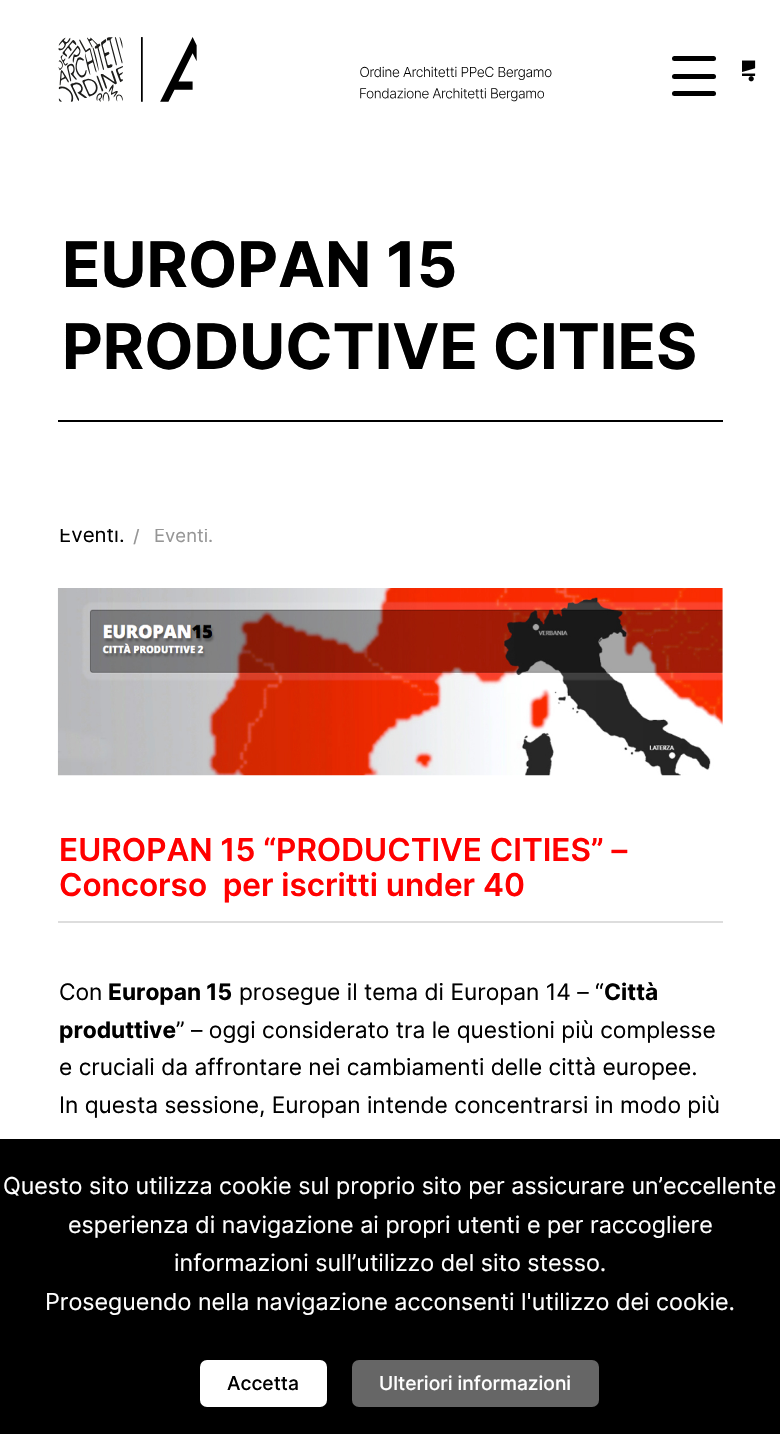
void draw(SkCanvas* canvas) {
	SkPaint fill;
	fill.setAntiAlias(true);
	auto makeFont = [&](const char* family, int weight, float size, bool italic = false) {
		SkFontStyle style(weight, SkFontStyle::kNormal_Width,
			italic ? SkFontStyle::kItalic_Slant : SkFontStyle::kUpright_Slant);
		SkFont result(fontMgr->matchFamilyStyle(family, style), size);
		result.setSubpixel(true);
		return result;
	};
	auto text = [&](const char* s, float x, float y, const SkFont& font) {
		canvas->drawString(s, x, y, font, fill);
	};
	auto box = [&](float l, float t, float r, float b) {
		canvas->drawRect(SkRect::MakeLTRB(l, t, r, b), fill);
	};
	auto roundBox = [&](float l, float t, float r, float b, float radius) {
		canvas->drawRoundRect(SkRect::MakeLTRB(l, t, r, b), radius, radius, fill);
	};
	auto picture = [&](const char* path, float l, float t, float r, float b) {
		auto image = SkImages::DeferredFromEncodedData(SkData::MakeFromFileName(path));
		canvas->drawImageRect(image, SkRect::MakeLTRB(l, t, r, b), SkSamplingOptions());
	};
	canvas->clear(0xFFFFFFFF);
	fill.setColor(0xFF000000);
	roundBox(672, 74, 716, 79, 2.5f);
	roundBox(672, 56, 716, 61, 2.5f);
	roundBox(672, 91, 716, 96, 2.5f);
	picture("image0.png", 58, 37, 552, 102);
	picture("image1.png", 742, 60, 756, 82);
	box(58, 420, 723, 422);
	picture("image2.png", 57, 588, 723, 776);
	fill.setColor(0xFFDDDDDD);
	box(58, 921, 723, 923);
	fill.setColor(0xFF000000);
	box(0, 1139, 780, 1434);
	fill.setColor(0xFFFFFFFF);
	roundBox(200, 1360, 327, 1407, 7);
	fill.setColor(0xFF666666);
	roundBox(352, 1360, 599, 1407, 7);
	auto font1 = makeFont("Inter", 700, 63);
	fill.setColor(0xFF000000);
	text("EUROPAN 15", 62, 287, font1);
	text("PRODUCTIVE CITIES", 62, 369, font1);
	canvas->save();
	canvas->clipRect(SkRect::MakeLTRB(58, 529, 723, 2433));
	auto font2 = makeFont("Inter", 400, 20.5f);
	text("Eventi.", 59, 542, font2);
	fill.setColor(0xFF969696);
	text("/", 133, 542, font2);
	auto font3 = makeFont("Inter", 400, 18.5f);
	text("Eventi.", 154, 542, font3);
	canvas->restore();
	auto font4 = makeFont("Inter", 600, 31.5f);
	fill.setColor(0xFFFF0000);
	text("EUROPAN 15 “PRODUCTIVE CITIES” –", 59, 861, font4);
	text("Concorso  per iscritti under 40", 59, 896, font4);
	auto font5 = makeFont("Inter", 400, 22.75f);
	fill.setColor(0xFF000000);
	text("Con", 59, 1000, font5);
	auto font6 = makeFont("Inter", 700, 22.75f);
	text("Europan 15", 108, 1000, font6);
	text("prosegue il tema di Europan 14 – “", 239, 1000, font5);
	text("Città", 604, 1000, font6);
	text("produttive", 59, 1038, font6);
	text("” – oggi considerato tra le questioni più complesse", 176, 1038, font5);
	text("e cruciali da affrontare nei cambiamenti delle città europee.", 59, 1075, font5);
	text("In questa sessione, Europan intende concentrarsi in modo più", 59, 1113, font5);
	auto font7 = makeFont("Inter", 400, 23.3f);
	fill.setColor(0xFFFFFFFF);
	text("Questo sito utilizza cookie sul proprio sito per assicurare un’eccellente", 3, 1194, font7);
	text("esperienza di navigazione ai propri utenti e per raccogliere", 68, 1233, font7);
	text("informazioni sull’utilizzo del sito stesso.", 174, 1271, font7);
	text("Proseguendo nella navigazione acconsenti l'utilizzo dei cookie.", 45, 1310, font7);
	auto font8 = makeFont("Inter", 500, 19.25f);
	fill.setColor(0xFF000000);
	text("Accetta", 227, 1390, font8);
	fill.setColor(0xFFFFFFFF);
	text("Ulteriori informazioni", 379, 1390, font8);
}
